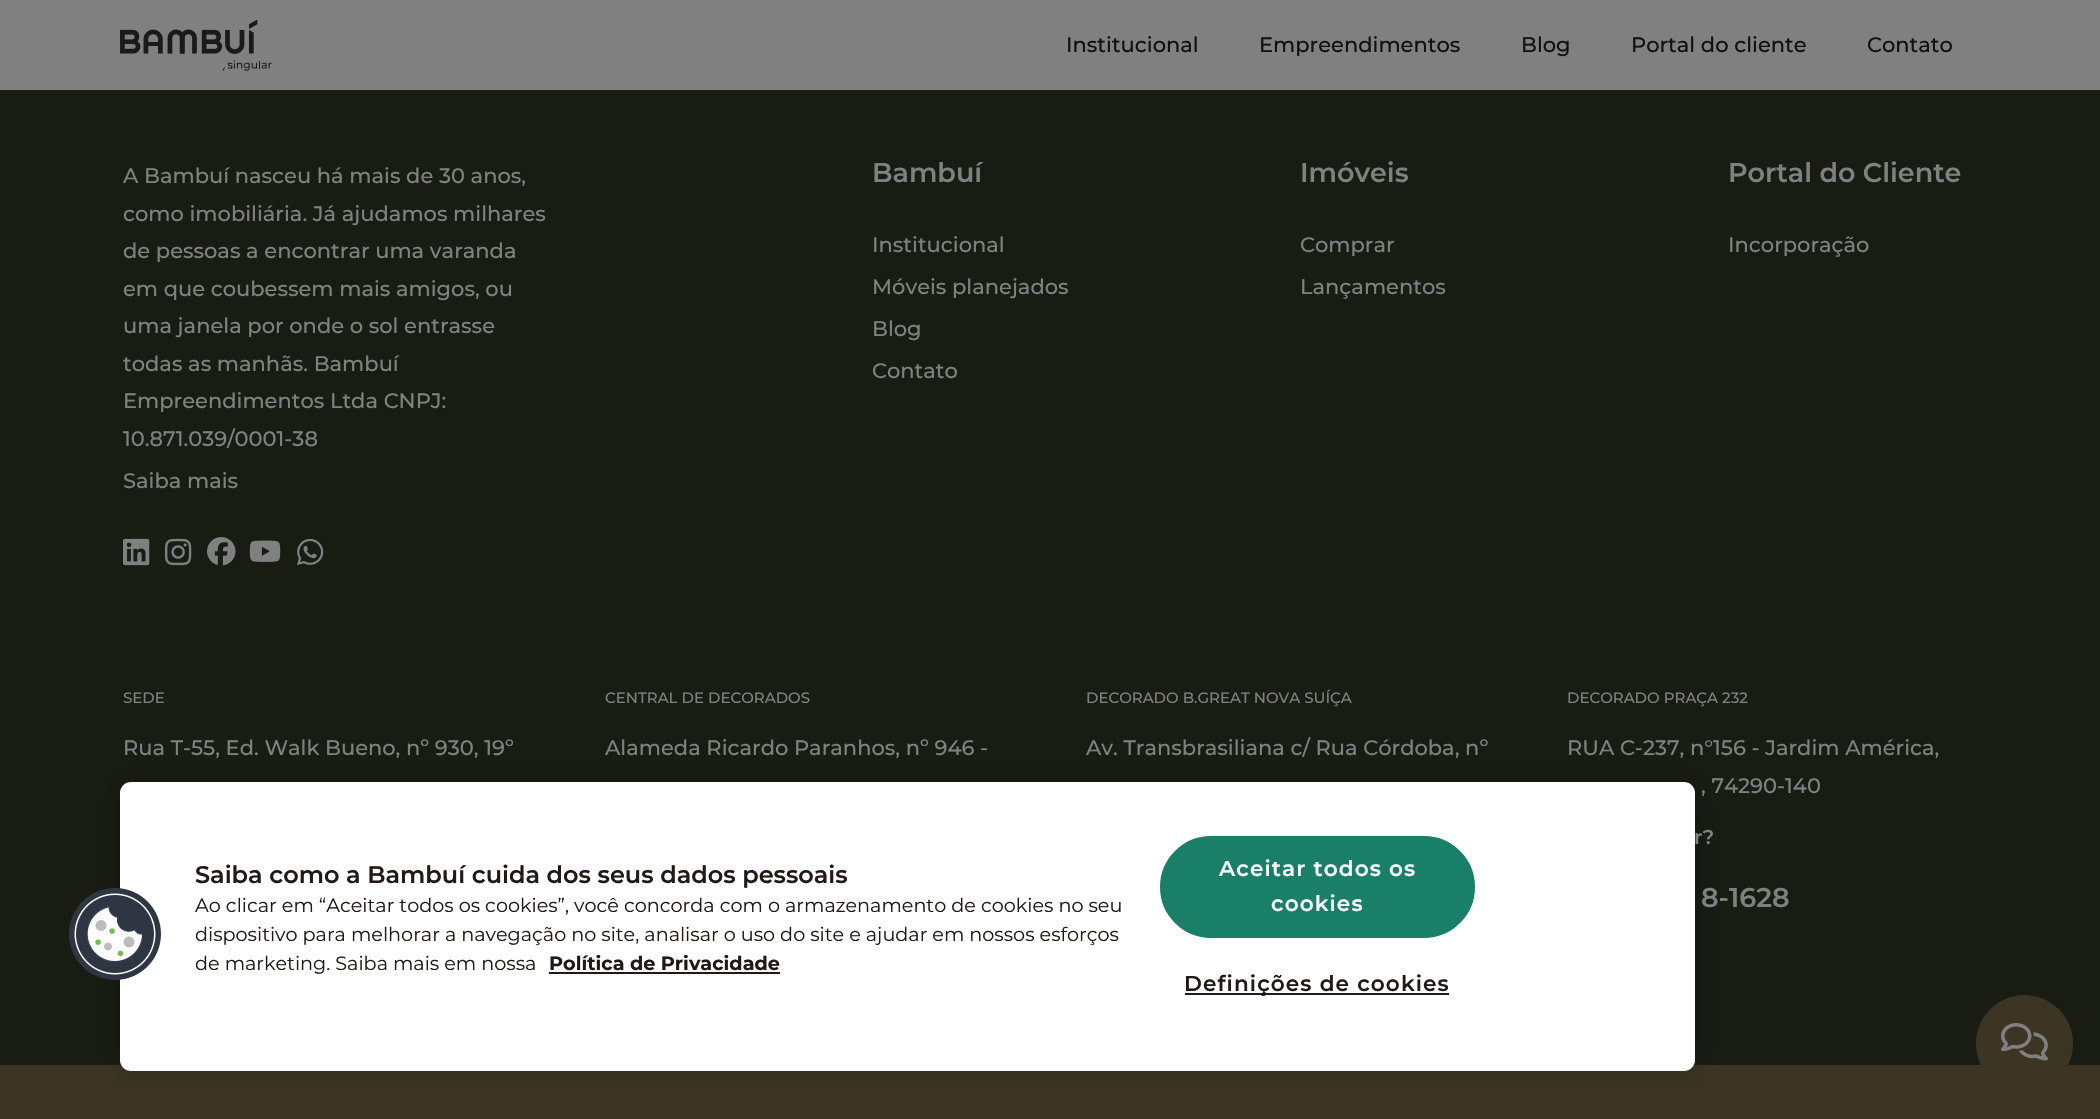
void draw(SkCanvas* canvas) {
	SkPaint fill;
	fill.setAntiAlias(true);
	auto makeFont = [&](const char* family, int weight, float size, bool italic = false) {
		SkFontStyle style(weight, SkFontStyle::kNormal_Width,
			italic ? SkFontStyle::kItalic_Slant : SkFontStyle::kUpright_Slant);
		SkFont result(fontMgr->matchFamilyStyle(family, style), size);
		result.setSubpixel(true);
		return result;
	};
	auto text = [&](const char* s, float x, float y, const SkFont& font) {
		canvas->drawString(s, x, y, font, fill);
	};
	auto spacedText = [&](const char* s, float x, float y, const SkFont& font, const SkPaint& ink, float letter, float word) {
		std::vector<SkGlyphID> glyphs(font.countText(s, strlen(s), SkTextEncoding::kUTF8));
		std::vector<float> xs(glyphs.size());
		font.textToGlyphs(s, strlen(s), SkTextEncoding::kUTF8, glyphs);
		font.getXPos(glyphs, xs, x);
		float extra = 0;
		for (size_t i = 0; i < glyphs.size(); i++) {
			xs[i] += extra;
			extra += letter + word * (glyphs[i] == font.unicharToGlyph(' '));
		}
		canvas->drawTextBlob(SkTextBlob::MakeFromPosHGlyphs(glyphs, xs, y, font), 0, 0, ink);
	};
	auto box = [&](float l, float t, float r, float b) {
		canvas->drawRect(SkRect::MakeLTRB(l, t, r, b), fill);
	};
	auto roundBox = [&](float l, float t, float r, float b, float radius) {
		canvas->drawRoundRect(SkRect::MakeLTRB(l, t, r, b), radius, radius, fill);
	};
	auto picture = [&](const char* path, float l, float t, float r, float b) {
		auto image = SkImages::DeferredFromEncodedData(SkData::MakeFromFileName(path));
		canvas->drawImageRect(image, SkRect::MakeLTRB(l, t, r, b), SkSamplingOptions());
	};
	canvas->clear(0xFF191C13);
	fill.setColor(0xFF808080);
	box(0, 0, 2100, 90);
	picture("image0.png", 120, 20, 272, 71);
	picture("image1.png", 123, 538, 150, 566);
	picture("image2.png", 165, 538, 192, 566);
	picture("image3.png", 207, 537, 236, 566);
	picture("image4.png", 249, 540, 281, 562);
	picture("image5.png", 297, 538, 324, 566);
	fill.setColor(0xFF3C3524);
	box(0, 1065, 2100, 1119);
	fill.setColor(0x33000000);
	fill.setMaskFilter(SkMaskFilter::MakeBlur(kNormal_SkBlurStyle, 13.5f));
	canvas->drawRoundRect(SkRect::MakeLTRB(120, 782, 1695, 1071), 11, 11, fill);
	fill.setMaskFilter(nullptr);
	fill.setColor(0xFFFFFFFF);
	roundBox(120, 782, 1695, 1071, 11);
	picture("image6.png", 69, 888, 161, 980);
	fill.setColor(0xFF211915);
	box(549, 972, 780, 974);
	fill.setColor(0xFF197F66);
	canvas->drawRoundRect(SkRect::MakeLTRB(1161, 837, 1474, 937), 50, 50, fill);
	fill.setStyle(SkPaint::kStroke_Style);
	fill.setStrokeWidth(2);
	canvas->drawRoundRect(SkRect::MakeLTRB(1161, 837, 1474, 937), 50, 50, fill);
	fill.setStyle(SkPaint::kFill_Style);
	fill.setColor(0xFF211915);
	box(1185, 993, 1449, 995);
	fill.setColor(0xFF3C3524);
	canvas->drawCircle(2024.5f, 1043.5f, 48.5f, fill);
	picture("image7.png", 2001, 1023, 2048, 1061);
	auto font1 = makeFont("Montserrat", 500, 21);
	fill.setColor(0xFF111111);
	text("Institucional", 1066, 52, font1);
	text("Empreendimentos", 1259, 52, font1);
	text("Blog", 1521, 52, font1);
	text("Portal do cliente", 1631, 52, font1);
	text("Contato", 1867, 52, font1);
	fill.setColor(0xFF808080);
	text("A Bambuí nasceu há mais de 30 anos,", 123, 183, font1);
	text("como imobiliária. Já ajudamos milhares", 123, 221, font1);
	text("de pessoas a encontrar uma varanda", 123, 258, font1);
	text("em que coubessem mais amigos, ou", 123, 296, font1);
	text("uma janela por onde o sol entrasse", 123, 333, font1);
	text("todas as manhãs. Bambuí", 123, 371, font1);
	text("Empreendimentos Ltda CNPJ:", 123, 408, font1);
	text("10.871.039/0001-38", 123, 446, font1);
	text("Saiba mais", 123, 488, font1);
	auto font2 = makeFont("Montserrat", 600, 27);
	text("Bambuí", 872, 182, font2);
	text("Institucional", 872, 252, font1);
	text("Móveis planejados", 872, 294, font1);
	text("Blog", 872, 336, font1);
	text("Contato", 872, 378, font1);
	text("Imóveis", 1300, 182, font2);
	text("Comprar", 1300, 252, font1);
	text("Lançamentos", 1300, 294, font1);
	text("Portal do Cliente", 1728, 182, font2);
	text("Incorporação", 1728, 252, font1);
	auto font3 = makeFont("Montserrat", 500, 15);
	text("SEDE", 123, 703, font3);
	text("Rua T-55, Ed. Walk Bueno, nº 930, 19º", 123, 755, font1);
	text("CENTRAL DE DECORADOS", 605, 703, font3);
	text("Alameda Ricardo Paranhos, nº 946 -", 605, 755, font1);
	text("DECORADO B.GREAT NOVA SUÍÇA", 1086, 703, font3);
	text("Av. Transbrasiliana c/ Rua Córdoba, nº", 1086, 755, font1);
	text("DECORADO PRAÇA 232", 1567, 703, font3);
	text("RUA C-237, n°156 - Jardim América,", 1567, 755, font1);
	text(", 74290-140", 1701, 793, font1);
	auto font4 = makeFont("Montserrat", 600, 20);
	text("r?", 1694, 844, font4);
	text("8-1628", 1701, 907, font2);
	auto font5 = makeFont("Montserrat", 600, 24);
	fill.setColor(0xFF211915);
	text("Saiba como a Bambuí cuida dos seus dados pessoais", 195, 883, font5);
	auto font6 = makeFont("Montserrat", 400, 19.2f);
	text("Ao clicar em “Aceitar todos os cookies”, você concorda com o armazenamento de cookies no seu", 195, 912, font6);
	text("dispositivo para melhorar a navegação no site, analisar o uso do site e ajudar em nossos esforços", 195, 941, font6);
	text("de marketing. Saiba mais em nossa", 195, 970, font6);
	auto font7 = makeFont("Montserrat", 700, 19.2f);
	text("Política de Privacidade", 549, 970, font7);
	auto font8 = makeFont("Montserrat", 600, 21.6f);
	fill.setColor(0xFFFFFFFF);
	spacedText("Aceitar todos os", 1219, 876, font8, fill, 1.1f, 0);
	spacedText("cookies", 1271, 911, font8, fill, 1.1f, 0);
	fill.setColor(0xFF211915);
	spacedText("Definições de cookies", 1184, 991, font8, fill, 1.1f, 0);
}
